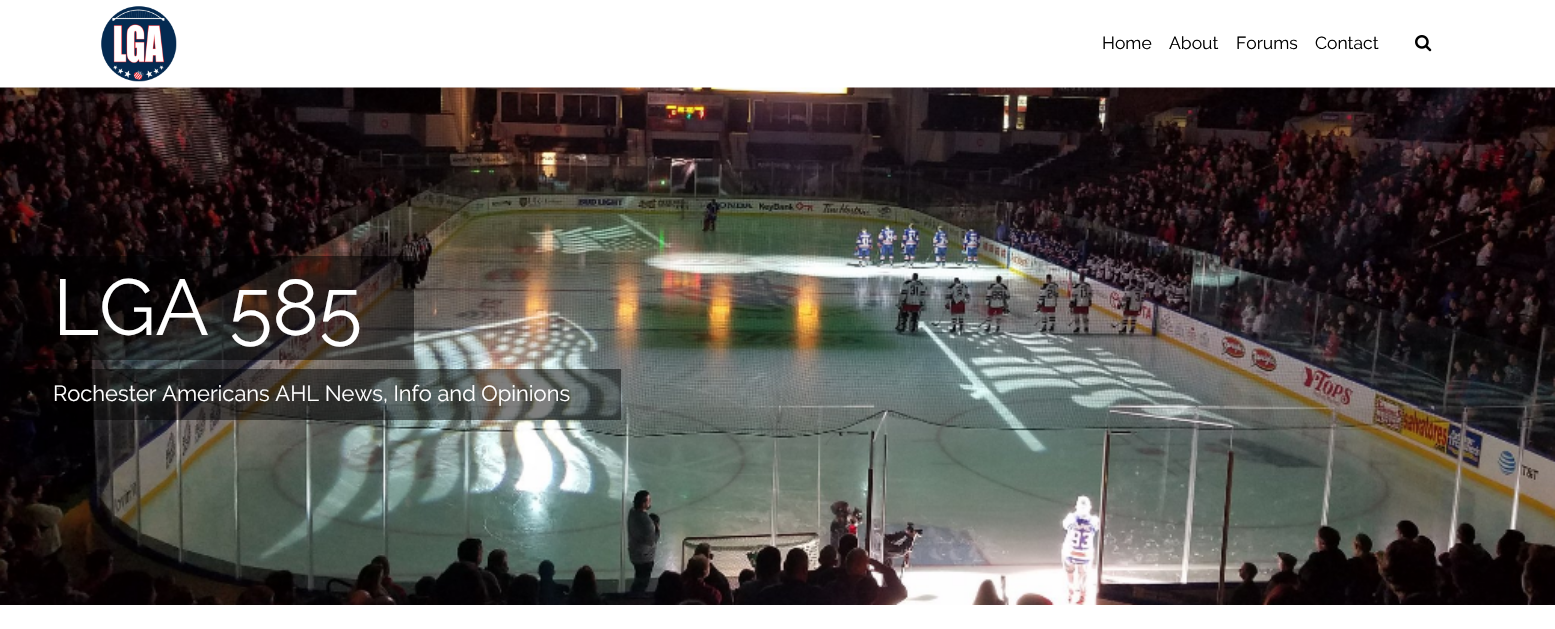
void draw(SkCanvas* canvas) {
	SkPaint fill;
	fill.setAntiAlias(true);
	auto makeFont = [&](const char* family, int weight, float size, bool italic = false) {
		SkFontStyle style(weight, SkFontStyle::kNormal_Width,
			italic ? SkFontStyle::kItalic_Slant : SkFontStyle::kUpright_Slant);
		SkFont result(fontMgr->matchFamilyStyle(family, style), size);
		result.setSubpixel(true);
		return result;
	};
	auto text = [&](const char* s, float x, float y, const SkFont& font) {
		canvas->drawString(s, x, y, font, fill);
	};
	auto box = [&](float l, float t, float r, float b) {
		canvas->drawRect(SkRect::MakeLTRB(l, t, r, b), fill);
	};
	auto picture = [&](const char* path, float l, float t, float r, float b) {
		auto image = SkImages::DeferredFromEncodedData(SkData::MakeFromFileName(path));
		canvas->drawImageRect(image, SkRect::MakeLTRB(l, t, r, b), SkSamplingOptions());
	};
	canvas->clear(0xFFFFFFFF);
	picture("image0.png", 101, 6, 177, 82);
	picture("image1.png", 1415, 35, 1432, 52);
	picture("image2.png", 0, 87, 1555, 605);
	fill.setColor(0x80000000);
	box(0, 256, 414, 360);
	box(0, 369, 621, 420);
	auto font1 = makeFont("Raleway", 400, 17.5f);
	fill.setColor(0xFF000000);
	text("Home", 1102, 49, font1);
	text("About", 1169, 49, font1);
	text("Forums", 1236, 49, font1);
	text("Contact", 1315, 49, font1);
	auto font2 = makeFont("Raleway", 400, 79);
	fill.setColor(0xFFFFFFFF);
	text("LGA 585", 53, 335, font2);
	auto font3 = makeFont("Raleway", 400, 21.9f);
	text("Rochester Americans AHL News, Info and Opinions", 53, 401, font3);
}
